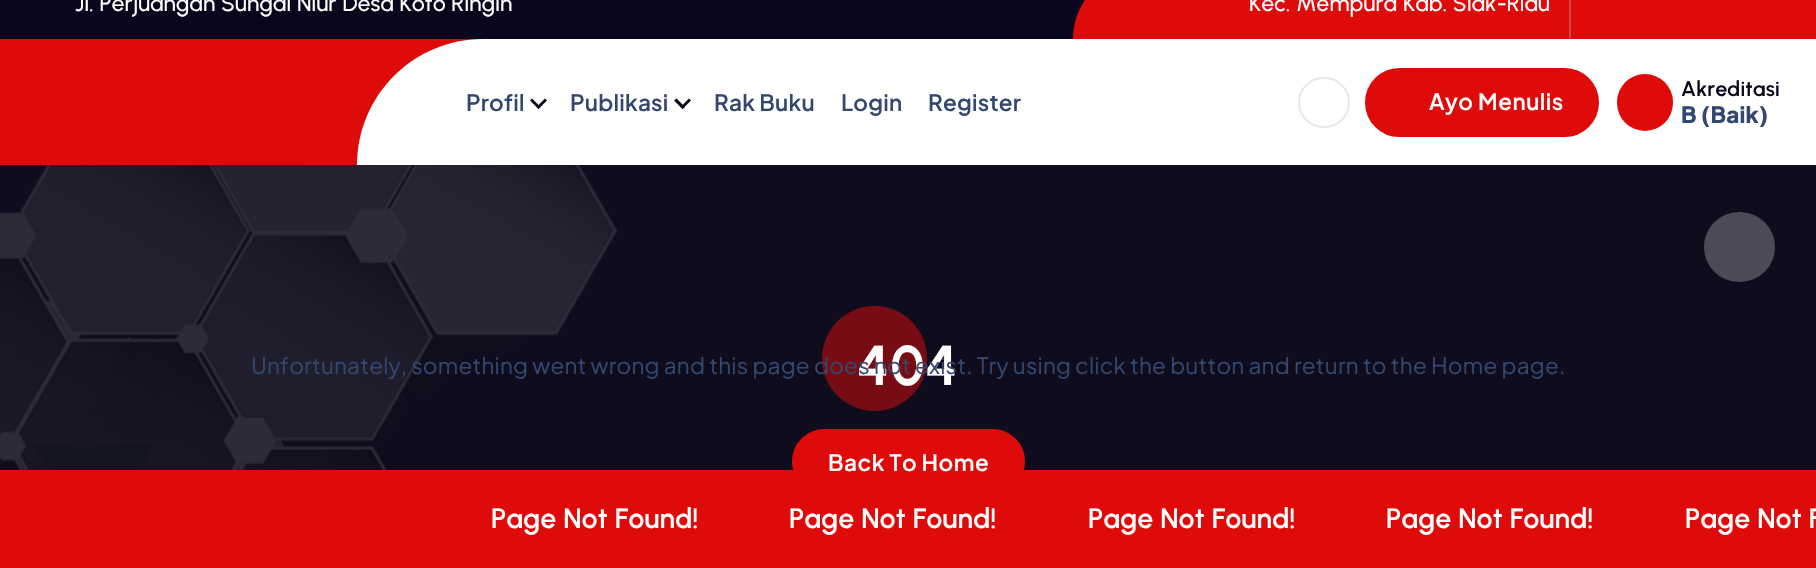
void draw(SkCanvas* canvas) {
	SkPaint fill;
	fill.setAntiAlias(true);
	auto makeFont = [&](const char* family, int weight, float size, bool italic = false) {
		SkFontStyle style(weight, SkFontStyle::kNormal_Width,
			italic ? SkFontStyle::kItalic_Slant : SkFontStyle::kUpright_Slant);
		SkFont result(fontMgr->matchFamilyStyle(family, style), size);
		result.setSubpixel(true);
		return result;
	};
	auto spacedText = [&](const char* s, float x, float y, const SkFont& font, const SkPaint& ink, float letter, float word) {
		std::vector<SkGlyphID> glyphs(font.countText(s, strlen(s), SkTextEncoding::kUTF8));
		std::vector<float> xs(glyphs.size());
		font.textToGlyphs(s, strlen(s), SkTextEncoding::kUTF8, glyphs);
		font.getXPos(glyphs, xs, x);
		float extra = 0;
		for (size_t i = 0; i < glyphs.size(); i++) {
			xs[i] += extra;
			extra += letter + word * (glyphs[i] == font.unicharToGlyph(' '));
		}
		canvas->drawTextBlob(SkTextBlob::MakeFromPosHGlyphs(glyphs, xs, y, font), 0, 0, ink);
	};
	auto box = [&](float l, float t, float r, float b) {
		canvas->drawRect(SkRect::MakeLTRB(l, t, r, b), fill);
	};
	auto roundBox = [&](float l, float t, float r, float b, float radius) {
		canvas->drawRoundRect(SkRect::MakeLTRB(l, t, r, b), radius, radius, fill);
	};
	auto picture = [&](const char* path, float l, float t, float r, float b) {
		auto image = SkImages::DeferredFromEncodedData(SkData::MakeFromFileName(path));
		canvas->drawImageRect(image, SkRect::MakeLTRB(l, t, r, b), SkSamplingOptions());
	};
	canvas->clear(0xFF0F0D1D);
	fill.setColor(0xFF09071D);
	box(0, 0, 1085, 39);
	fill.setColor(0xFFDF0A0A);
	canvas->drawPath(SkPathBuilder().moveTo(1143, -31).lineTo(1781, -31).lineTo(1781, 39).lineTo(1073, 39).cubicTo(1073, 0.5f, 1104.5f, -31, 1143, -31).close().detach(), fill);
	fill.setColor(0xFFD34949);
	box(1569, 0, 1571, 38);
	fill.setColor(0xFFDF0A0A);
	box(1781, 0, 1816, 39);
	box(0, 39, 482, 165);
	fill.setColor(0xFFFFFFFF);
	canvas->drawPath(SkPathBuilder().moveTo(483, 39).lineTo(1781, 39).lineTo(1781, 165).lineTo(357, 165).cubicTo(357, 95.5f, 413.5f, 39, 483, 39).close().detach(), fill);
	fill.setColor(0xFF09071D);
	canvas->drawPath(SkPathBuilder().moveTo(545, 98.5f).lineTo(547, 100.5f).lineTo(538.5f, 109).lineTo(536.5f, 107).close().detach(), fill);
	canvas->drawPath(SkPathBuilder().moveTo(532, 98.5f).lineTo(540.5f, 107).lineTo(538.5f, 109).lineTo(530, 100.5f).close().detach(), fill);
	canvas->drawPath(SkPathBuilder().moveTo(689, 98.5f).lineTo(691, 100.5f).lineTo(682.5f, 109).lineTo(680.5f, 107).close().detach(), fill);
	canvas->drawPath(SkPathBuilder().moveTo(676.5f, 98.5f).lineTo(685, 107).lineTo(682.5f, 109).lineTo(674, 100.5f).close().detach(), fill);
	fill.setStyle(SkPaint::kStroke_Style);
	fill.setStrokeWidth(2);
	fill.setColor(0xFFE8E8E8);
	canvas->drawRoundRect(SkRect::MakeLTRB(1299, 78, 1349, 127), 24.5f, 24.5f, fill);
	fill.setStyle(SkPaint::kFill_Style);
	fill.setColor(0xFFDF0A0A);
	canvas->drawRoundRect(SkRect::MakeLTRB(1366, 69, 1598, 136), 33.5f, 33.5f, fill);
	fill.setStyle(SkPaint::kStroke_Style);
	canvas->drawRoundRect(SkRect::MakeLTRB(1366, 69, 1598, 136), 33.5f, 33.5f, fill);
	fill.setStyle(SkPaint::kFill_Style);
	roundBox(1617, 74, 1673, 131, 28);
	fill.setColor(0xFFFFFFFF);
	box(1781, 39, 1816, 165);
	picture("image0.png", 0, 165, 617, 470);
	fill.setColor(0xFF4B4A56);
	roundBox(1704, 212, 1775, 282, 35);
	fill.setColor(0xFF770C14);
	canvas->drawCircle(874.5f, 358.5f, 52.5f, fill);
	fill.setColor(0xFFDF0A0A);
	box(0, 470, 1816, 568);
	canvas->drawRoundRect(SkRect::MakeLTRB(793, 430, 1024, 493), 31.5f, 31.5f, fill);
	fill.setStyle(SkPaint::kStroke_Style);
	canvas->drawRoundRect(SkRect::MakeLTRB(793, 430, 1024, 493), 31.5f, 31.5f, fill);
	auto font1 = makeFont("Urbanist", 500, 22.5f);
	fill.setStyle(SkPaint::kFill_Style);
	fill.setColor(0xFFFFFFFF);
	spacedText("Jl. Perjuangan Sungai Niur Desa Koto Ringin", 75, 11, font1, fill, 0.22f, 0);
	spacedText("Kec. Mempura Kab. Siak-Riau", 1249, 11, font1, fill, 0.22f, 0);
	auto font2 = makeFont("Plus Jakarta Sans", 600, 22.5f);
	fill.setColor(0xFF334770);
	spacedText("Profil", 466, 111, font2, fill, 0.22f, 0);
	spacedText("Publikasi", 570, 111, font2, fill, 0.22f, 0);
	spacedText("Rak Buku", 714, 111, font2, fill, 0.22f, 0);
	spacedText("Login", 841, 111, font2, fill, 0.22f, 0);
	spacedText("Register", 928, 111, font2, fill, 0.22f, 0);
	fill.setColor(0xFFFFFFFF);
	spacedText("Ayo Menulis", 1429, 110, font2, fill, 0.5f, 0);
	auto font3 = makeFont("Urbanist", 600, 21);
	fill.setColor(0xFF09071D);
	spacedText("Akreditasi", 1681, 96, font3, fill, 0.22f, 0);
	auto font4 = makeFont("Plus Jakarta Sans", 800, 22.5f);
	fill.setColor(0xFF334770);
	spacedText("B (Baik)", 1681, 123, font4, fill, 0.22f, 0);
	auto font5 = makeFont("Urbanist", 700, 56);
	fill.setColor(0xFFFFFFFF);
	spacedText("404", 857, 385, font5, fill, 1, 0);
	auto font6 = makeFont("Plus Jakarta Sans", 400, 22.5f);
	fill.setColor(0xFF334770);
	spacedText("Unfortunately, something went wrong and this page does not exist. Try using click the button and return to the Home page.", 251, 374, font6, fill, 0.22f, 0);
	fill.setColor(0xFFFFFFFF);
	spacedText("Back To Home", 828, 471, font2, fill, 0.5f, 0);
	auto font7 = makeFont("Urbanist", 600, 28);
	spacedText("Page Not Found!", 491, 528, font7, fill, 0.22f, 0);
	spacedText("Page Not Found!", 789, 528, font7, fill, 0.22f, 0);
	spacedText("Page Not Found!", 1088, 528, font7, fill, 0.22f, 0);
	spacedText("Page Not Found!", 1386, 528, font7, fill, 0.22f, 0);
	spacedText("Page Not F", 1685, 528, font7, fill, 0.22f, 0);
}
